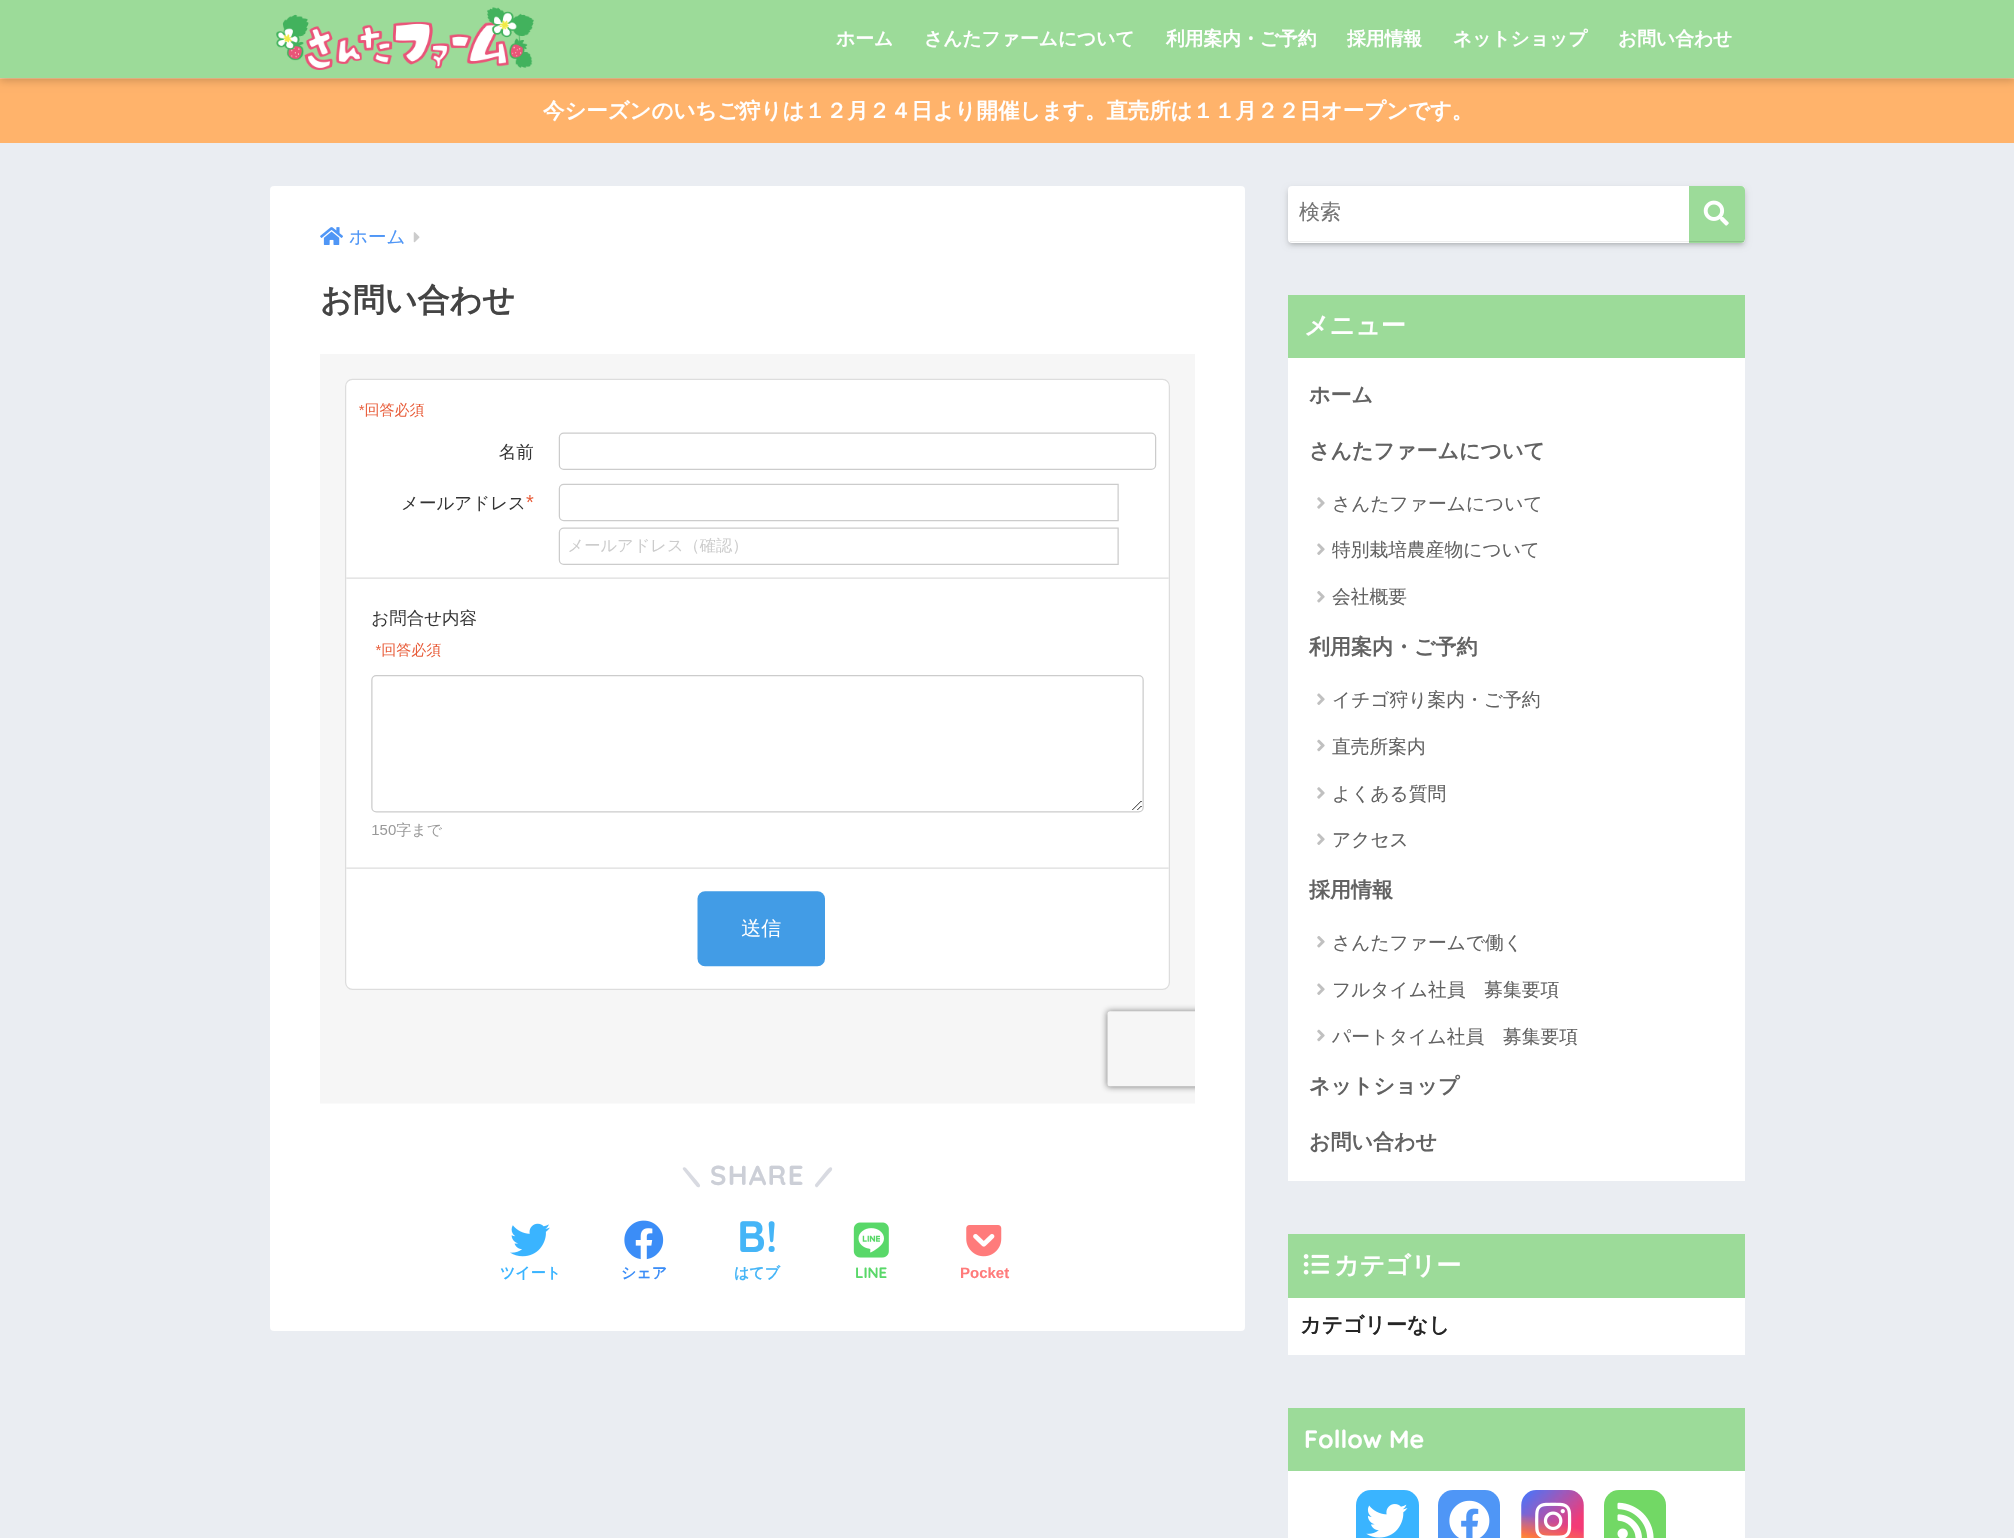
void draw(SkCanvas* canvas) {
	SkPaint fill;
	fill.setAntiAlias(true);
	auto makeFont = [&](const char* family, int weight, float size, bool italic = false) {
		SkFontStyle style(weight, SkFontStyle::kNormal_Width,
			italic ? SkFontStyle::kItalic_Slant : SkFontStyle::kUpright_Slant);
		SkFont result(fontMgr->matchFamilyStyle(family, style), size);
		result.setSubpixel(true);
		return result;
	};
	auto text = [&](const char* s, float x, float y, const SkFont& font) {
		canvas->drawString(s, x, y, font, fill);
	};
	auto spacedText = [&](const char* s, float x, float y, const SkFont& font, const SkPaint& ink, float letter, float word) {
		std::vector<SkGlyphID> glyphs(font.countText(s, strlen(s), SkTextEncoding::kUTF8));
		std::vector<float> xs(glyphs.size());
		font.textToGlyphs(s, strlen(s), SkTextEncoding::kUTF8, glyphs);
		font.getXPos(glyphs, xs, x);
		float extra = 0;
		for (size_t i = 0; i < glyphs.size(); i++) {
			xs[i] += extra;
			extra += letter + word * (glyphs[i] == font.unicharToGlyph(' '));
		}
		canvas->drawTextBlob(SkTextBlob::MakeFromPosHGlyphs(glyphs, xs, y, font), 0, 0, ink);
	};
	auto box = [&](float l, float t, float r, float b) {
		canvas->drawRect(SkRect::MakeLTRB(l, t, r, b), fill);
	};
	auto roundBox = [&](float l, float t, float r, float b, float radius) {
		canvas->drawRoundRect(SkRect::MakeLTRB(l, t, r, b), radius, radius, fill);
	};
	auto picture = [&](const char* path, float l, float t, float r, float b) {
		auto image = SkImages::DeferredFromEncodedData(SkData::MakeFromFileName(path));
		canvas->drawImageRect(image, SkRect::MakeLTRB(l, t, r, b), SkSamplingOptions());
	};
	canvas->clear(0xFFEAEDF2);
	fill.setColor(0xFFFFB36B);
	box(0, 79, 2014, 143);
	fill.setColor(0xFFFFCA97);
	box(0, 78, 2014, 79);
	fill.setColor(0x2E000000);
	fill.setMaskFilter(SkMaskFilter::MakeBlur(kNormal_SkBlurStyle, 4));
	canvas->drawRect(SkRect::MakeLTRB(0, 4, 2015, 81), fill);
	fill.setMaskFilter(nullptr);
	fill.setColor(0xFF9CDB99);
	box(0, 0, 2014, 78);
	picture("image0.png", 276, 7, 534, 70);
	fill.setColor(0xFFFFFFFF);
	roundBox(270, 186, 1245, 1331, 4);
	picture("image1.png", 320, 227, 343, 245);
	picture("image2.png", 413, 232, 420, 243);
	picture("image3.png", 320, 354, 1195, 1104);
	fill.setColor(0xFFD8DAE1);
	canvas->drawPath(SkPathBuilder().moveTo(686, 1168).lineTo(697.5f, 1181.5f).cubicTo(698, 1182.5f, 701.5f, 1185, 699.5f, 1187).cubicTo(697.5f, 1188.5f, 695.5f, 1185, 694.5f, 1184).lineTo(683, 1169.5f).cubicTo(682, 1167.5f, 684.5f, 1166.5f, 686, 1168).close().detach(), fill);
	canvas->drawPath(SkPathBuilder().moveTo(815.5f, 1184).lineTo(826.5f, 1170.5f).cubicTo(827.5f, 1169.5f, 829.5f, 1166, 831.5f, 1167.5f).cubicTo(833.5f, 1169.5f, 830.5f, 1172, 829.5f, 1173).lineTo(817.5f, 1187).cubicTo(816, 1188, 814, 1185.5f, 815.5f, 1184).close().detach(), fill);
	picture("image4.png", 510, 1223, 550, 1257);
	picture("image5.png", 624, 1220, 664, 1260);
	picture("image6.png", 853, 1222, 889, 1258);
	picture("image7.png", 966, 1225, 1002, 1257);
	fill.setColor(0x26000000);
	fill.setMaskFilter(SkMaskFilter::MakeBlur(kNormal_SkBlurStyle, 2));
	canvas->drawRoundRect(SkRect::MakeLTRB(1290, 193, 1743, 244), 1, 1, fill);
	fill.setMaskFilter(nullptr);
	fill.setMaskFilter(SkMaskFilter::MakeBlur(kNormal_SkBlurStyle, 3));
	canvas->drawRoundRect(SkRect::MakeLTRB(1288, 189, 1745, 245), 4, 4, fill);
	fill.setMaskFilter(nullptr);
	fill.setColor(0xFFFFFFFF);
	roundBox(1288, 186, 1745, 243, 4);
	fill.setColor(0xFFEFEFEF);
	box(1290, 241, 1744, 242);
	fill.setColor(0xFF9CDB99);
	canvas->drawPath(SkPathBuilder().moveTo(1689, 186).lineTo(1741, 186).cubicTo(1743, 186, 1745, 188, 1745, 190).lineTo(1745, 239).cubicTo(1745, 241, 1743, 243, 1741, 243).lineTo(1689, 243).close().detach(), fill);
	fill.setColor(0x1A000000);
	box(1689, 241, 1744, 242);
	picture("image8.png", 1703, 200, 1729, 226);
	fill.setColor(0xFFFFFFFF);
	box(1288, 358, 1745, 1181);
	fill.setColor(0xFF9CDB99);
	box(1288, 295, 1745, 358);
	picture("image9.png", 1317, 497, 1325, 509);
	picture("image10.png", 1317, 543, 1325, 555);
	picture("image11.png", 1317, 591, 1325, 603);
	picture("image10.png", 1317, 693, 1325, 705);
	picture("image12.png", 1317, 739, 1325, 752);
	picture("image9.png", 1317, 787, 1325, 799);
	picture("image10.png", 1317, 833, 1325, 845);
	picture("image11.png", 1317, 936, 1325, 948);
	picture("image10.png", 1317, 983, 1325, 995);
	picture("image12.png", 1317, 1029, 1325, 1042);
	fill.setColor(0xFFFFFFFF);
	box(1288, 1298, 1745, 1355);
	fill.setColor(0xFF9CDB99);
	box(1288, 1234, 1745, 1298);
	picture("image13.png", 1303, 1254, 1329, 1275);
	fill.setColor(0xFFFFFFFF);
	box(1288, 1471, 1745, 1538);
	fill.setColor(0xFF9CDB99);
	box(1288, 1408, 1745, 1471);
	fill.setColor(0xFF3AB4FF);
	roundBox(1356, 1490, 1419, 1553, 15);
	picture("image14.png", 1366, 1504, 1408, 1538);
	fill.setColor(0xFF4F96F6);
	roundBox(1438, 1490, 1500, 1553, 15);
	picture("image15.png", 1449, 1500, 1490, 1538);
	picture("image16.png", 1521, 1490, 1584, 1538);
	picture("image17.png", 1535, 1502, 1572, 1538);
	fill.setColor(0xFF72D865);
	roundBox(1604, 1490, 1666, 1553, 15);
	picture("image18.png", 1617, 1502, 1654, 1538);
	auto font1 = makeFont("WenQuanYi Zen Hei", 700, 18.75f);
	fill.setColor(0xFFFFFFFF);
	text("ホーム", 836, 45, font1);
	text("さんたファームについて", 924, 45, font1);
	text("利用案内・ご予約", 1166, 45, font1);
	text("採用情報", 1347, 45, font1);
	text("ネットショップ", 1453, 45, font1);
	text("お問い合わせ", 1618, 45, font1);
	auto font2 = makeFont("WenQuanYi Zen Hei", 700, 21.4f);
	text("今シーズンのいちご狩りは１２月２４日より開催します。直売所は１１月２２日オープンです。", 543, 118, font2);
	auto font3 = makeFont("WenQuanYi Zen Hei", 500, 18.5f);
	fill.setColor(0xFF4F96F6);
	text("ホーム", 349, 243, font3);
	auto font4 = makeFont("WenQuanYi Zen Hei", 700, 32);
	fill.setColor(0xFF444444);
	text("お問い合わせ", 320, 311, font4);
	auto font5 = makeFont("Quicksand", 700, 27.5f);
	fill.setColor(0xFFCCCFD7);
	spacedText("SHARE", 710, 1185, font5, fill, 1.25f, 0);
	auto font6 = makeFont("WenQuanYi Zen Hei", 700, 15);
	fill.setColor(0xFF3AB4FF);
	text("ツイート", 500, 1278, font6);
	fill.setColor(0xFF3B8DF7);
	text("シェア", 621, 1278, font6);
	auto font7 = makeFont("Quicksand", 700, 44);
	fill.setColor(0xFF45B5F7);
	text("B!", 737, 1252, font7);
	text("はてブ", 734, 1278, font6);
	auto font8 = makeFont("Quicksand", 700, 15);
	fill.setColor(0xFF59D869);
	text("LINE", 855, 1278, font8);
	auto font9 = makeFont("Liberation Sans", 700, 15);
	fill.setColor(0xFFFF7B7B);
	text("Pocket", 960, 1278, font9);
	auto font10 = makeFont("WenQuanYi Zen Hei", 500, 21);
	fill.setColor(0xFF757575);
	text("検索", 1299, 219, font10);
	auto font11 = makeFont("WenQuanYi Zen Hei", 700, 25);
	fill.setColor(0xFFFFFFFF);
	text("メニュー", 1304, 334, font11);
	auto font12 = makeFont("WenQuanYi Zen Hei", 700, 21);
	fill.setColor(0xFF626262);
	text("ホーム", 1309, 402, font12);
	text("さんたファームについて", 1309, 458, font12);
	auto font13 = makeFont("WenQuanYi Zen Hei", 500, 18.75f);
	text("さんたファームについて", 1332, 510, font13);
	text("特別栽培農産物について", 1332, 556, font13);
	text("会社概要", 1332, 603, font13);
	text("利用案内・ご予約", 1309, 654, font12);
	text("イチゴ狩り案内・ご予約", 1332, 706, font13);
	text("直売所案内", 1332, 753, font13);
	text("よくある質問", 1332, 800, font13);
	text("アクセス", 1332, 846, font13);
	text("採用情報", 1309, 897, font12);
	text("さんたファームで働く", 1332, 949, font13);
	text("フルタイム社員　募集要項", 1332, 996, font13);
	text("パートタイム社員　募集要項", 1332, 1043, font13);
	text("ネットショップ", 1309, 1093, font12);
	text("お問い合わせ", 1309, 1149, font12);
	fill.setColor(0xFFFFFFFF);
	text("カテゴリー", 1334, 1274, font11);
	fill.setColor(0xFF252525);
	text("カテゴリーなし", 1300, 1332, font12);
	auto font14 = makeFont("Quicksand", 700, 25);
	fill.setColor(0xFFFFFFFF);
	text("Follow Me", 1304, 1448, font14);
}
